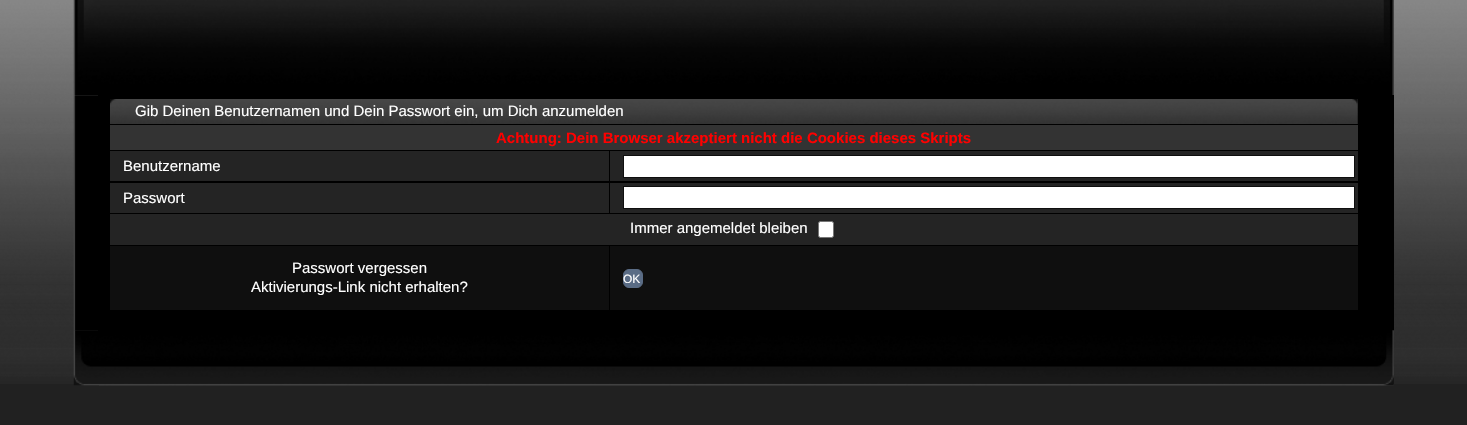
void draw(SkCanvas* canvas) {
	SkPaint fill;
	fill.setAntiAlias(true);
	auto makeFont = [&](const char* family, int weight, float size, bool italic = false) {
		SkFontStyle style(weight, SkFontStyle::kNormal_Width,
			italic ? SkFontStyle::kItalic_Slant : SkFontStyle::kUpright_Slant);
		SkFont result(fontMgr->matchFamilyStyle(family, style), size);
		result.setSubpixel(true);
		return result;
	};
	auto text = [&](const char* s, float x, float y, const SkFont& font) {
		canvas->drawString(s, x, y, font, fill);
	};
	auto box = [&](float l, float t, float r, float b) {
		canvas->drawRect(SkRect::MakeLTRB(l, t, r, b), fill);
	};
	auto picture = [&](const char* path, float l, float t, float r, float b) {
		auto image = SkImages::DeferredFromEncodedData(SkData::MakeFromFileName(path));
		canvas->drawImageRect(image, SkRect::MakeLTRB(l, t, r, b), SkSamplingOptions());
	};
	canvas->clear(0xFF212121);
	picture("image0.png", 0, 0, 1467, 384);
	picture("image1.png", 73, 0, 1394, 96);
	picture("image2.png", 98, 0, 1394, 95);
	picture("image3.png", 73, 95, 98, 331);
	fill.setColor(0xFF000000);
	box(98, 95, 1394, 331);
	picture("image4.png", 110, 99, 1358, 124);
	picture("image5.png", 1352, 99, 1358, 124);
	fill.setColor(0xFF333333);
	box(110, 125, 1358, 150);
	fill.setColor(0xFF242424);
	box(110, 151, 609, 181);
	box(610, 151, 1358, 181);
	fill.setColor(0xFFFFFFFF);
	canvas->drawRect(SkRect::MakeLTRB(623.5f, 155.5f, 1354.5f, 177.5f), fill);
	fill.setStyle(SkPaint::kStroke_Style);
	fill.setStrokeWidth(1);
	fill.setColor(0xFF0F0F0F);
	canvas->drawRect(SkRect::MakeLTRB(623.5f, 155.5f, 1354.5f, 177.5f), fill);
	fill.setStyle(SkPaint::kFill_Style);
	fill.setColor(0xFF242424);
	box(110, 183, 609, 213);
	box(610, 183, 1358, 213);
	fill.setColor(0xFFFFFFFF);
	canvas->drawRect(SkRect::MakeLTRB(623.5f, 186.5f, 1354.5f, 208.5f), fill);
	fill.setStyle(SkPaint::kStroke_Style);
	fill.setColor(0xFF0F0F0F);
	canvas->drawRect(SkRect::MakeLTRB(623.5f, 186.5f, 1354.5f, 208.5f), fill);
	fill.setStyle(SkPaint::kFill_Style);
	fill.setColor(0xFF242424);
	box(110, 214, 1358, 245);
	fill.setColor(0xFFFFFFFF);
	canvas->drawRoundRect(SkRect::MakeLTRB(818.5f, 221.5f, 833.5f, 237.5f), 2, 2, fill);
	fill.setStyle(SkPaint::kStroke_Style);
	fill.setColor(0xFF767676);
	canvas->drawRoundRect(SkRect::MakeLTRB(818.5f, 221.5f, 833.5f, 237.5f), 2, 2, fill);
	fill.setStyle(SkPaint::kFill_Style);
	fill.setColor(0xFF0F0F0F);
	box(110, 246, 609, 310);
	box(610, 246, 1358, 310);
	fill.setColor(0xFF5A6C85);
	canvas->drawRoundRect(SkRect::MakeLTRB(623.5f, 269.5f, 642.5f, 287.5f), 5.5f, 5.5f, fill);
	fill.setStyle(SkPaint::kStroke_Style);
	canvas->drawRoundRect(SkRect::MakeLTRB(623.5f, 269.5f, 642.5f, 287.5f), 5.5f, 5.5f, fill);
	picture("image6.png", 73, 330, 1394, 386);
	picture("image7.png", 99, 330, 1394, 386);
	auto font1 = makeFont("Liberation Sans", 400, 15);
	fill.setStyle(SkPaint::kFill_Style);
	fill.setColor(0xFFFFFFFF);
	text("Gib Deinen Benutzernamen und Dein Passwort ein, um Dich anzumelden", 135, 116, font1);
	auto font2 = makeFont("Liberation Sans", 700, 15);
	fill.setColor(0xFFFF0000);
	text("Achtung: Dein Browser akzeptiert nicht die Cookies dieses Skripts", 496, 143, font2);
	fill.setColor(0xFFFFFFFF);
	text("Benutzername", 123, 171, font1);
	text("Passwort", 123, 203, font1);
	text("Immer angemeldet bleiben", 630, 233, font1);
	text("Passwort vergessen", 292, 273, font1);
	text("Aktivierungs-Link nicht erhalten?", 251, 292, font1);
	auto font3 = makeFont("Liberation Sans", 400, 12);
	text("OK", 623, 283, font3);
}
